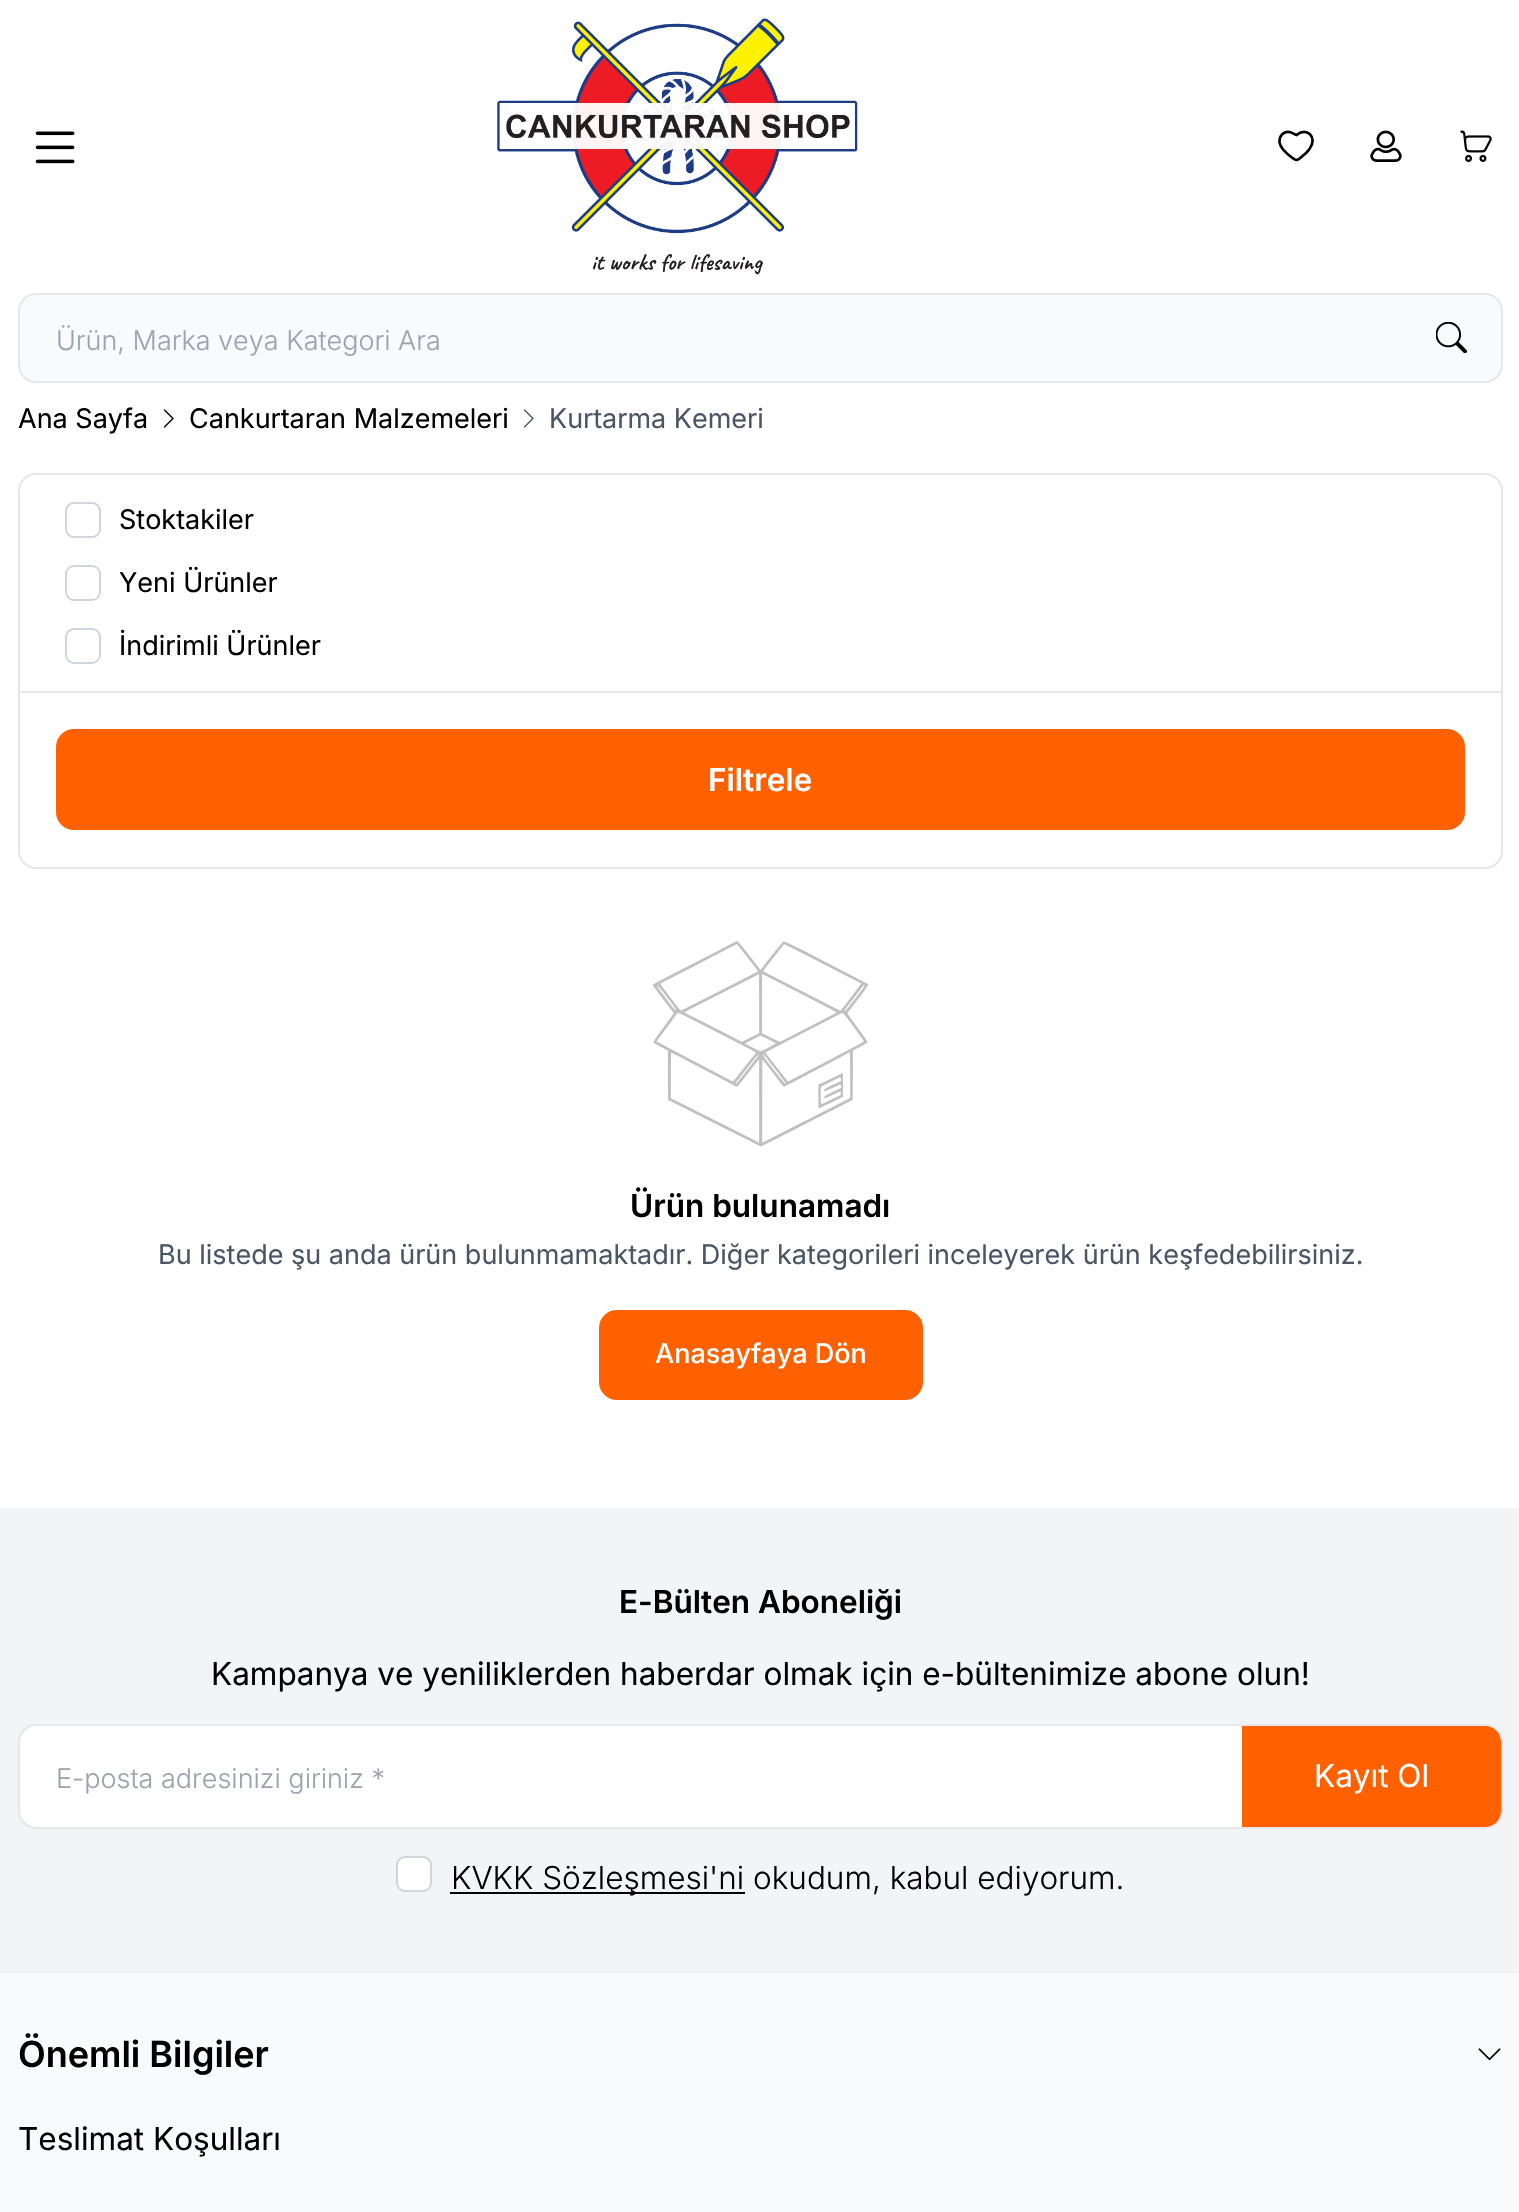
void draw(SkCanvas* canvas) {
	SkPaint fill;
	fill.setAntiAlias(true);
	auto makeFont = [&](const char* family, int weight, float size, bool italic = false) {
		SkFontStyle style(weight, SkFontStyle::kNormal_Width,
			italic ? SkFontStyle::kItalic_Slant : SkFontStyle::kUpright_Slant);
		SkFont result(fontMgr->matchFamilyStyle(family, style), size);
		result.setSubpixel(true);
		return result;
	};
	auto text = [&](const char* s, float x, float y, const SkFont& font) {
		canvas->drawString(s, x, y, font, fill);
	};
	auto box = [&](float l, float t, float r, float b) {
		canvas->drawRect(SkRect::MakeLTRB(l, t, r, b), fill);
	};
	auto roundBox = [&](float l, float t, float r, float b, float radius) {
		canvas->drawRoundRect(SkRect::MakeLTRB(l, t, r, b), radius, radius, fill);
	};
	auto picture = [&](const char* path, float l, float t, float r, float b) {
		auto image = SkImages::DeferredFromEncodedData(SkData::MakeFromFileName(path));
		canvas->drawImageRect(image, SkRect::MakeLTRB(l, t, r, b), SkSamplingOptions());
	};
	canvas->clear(0xFFFFFFFF);
	picture("image0.png", 35, 131, 75, 164);
	picture("image1.png", 497, 18, 858, 275);
	fill.setStyle(SkPaint::kStroke_Style);
	fill.setStrokeWidth(2.7f);
	fill.setColor(0xFF000000);
	canvas->drawPath(SkPathBuilder().moveTo(1285, 132.5f).cubicTo(1290, 130.5f, 1292.5f, 133.5f, 1296.5f, 135).cubicTo(1306, 126.5f, 1318.5f, 137, 1309.5f, 149).cubicTo(1307.5f, 152, 1304.5f, 154.5f, 1302, 156.5f).cubicTo(1298, 160, 1297, 161.5f, 1292.5f, 158).lineTo(1287.5f, 154).cubicTo(1284.5f, 151.5f, 1282, 149, 1280.5f, 145.5f).cubicTo(1278, 140.5f, 1280, 134.5f, 1285, 132.5f).close().detach(), fill);
	picture("image2.png", 1370, 130, 1402, 162);
	picture("image3.png", 1460, 130, 1492, 162);
	fill.setStyle(SkPaint::kFill_Style);
	fill.setColor(0xFFF9FAFB);
	canvas->drawRoundRect(SkRect::MakeLTRB(19, 294, 1502, 382), 17, 17, fill);
	fill.setStyle(SkPaint::kStroke_Style);
	fill.setStrokeWidth(2);
	fill.setColor(0xFFE5E7EB);
	canvas->drawRoundRect(SkRect::MakeLTRB(19, 294, 1502, 382), 17, 17, fill);
	picture("image4.png", 1436, 322, 1467, 353);
	picture("image5.png", 163, 409, 174, 428);
	picture("image6.png", 523, 409, 534, 428);
	canvas->drawRoundRect(SkRect::MakeLTRB(19, 474, 1502, 868), 17, 17, fill);
	fill.setStyle(SkPaint::kFill_Style);
	box(20, 691, 1501, 693);
	fill.setStyle(SkPaint::kStroke_Style);
	fill.setColor(0xFFD1D5DB);
	canvas->drawRoundRect(SkRect::MakeLTRB(66, 503, 100, 537), 8, 8, fill);
	canvas->drawRoundRect(SkRect::MakeLTRB(66, 566, 100, 600), 8, 8, fill);
	canvas->drawRoundRect(SkRect::MakeLTRB(66, 629, 100, 663), 8, 8, fill);
	fill.setStyle(SkPaint::kFill_Style);
	fill.setColor(0xFFFF6000);
	canvas->drawRoundRect(SkRect::MakeLTRB(57, 730, 1464, 829), 17, 17, fill);
	fill.setStyle(SkPaint::kStroke_Style);
	canvas->drawRoundRect(SkRect::MakeLTRB(57, 730, 1464, 829), 17, 17, fill);
	picture("image7.png", 653, 941, 869, 1147);
	fill.setStyle(SkPaint::kFill_Style);
	canvas->drawRoundRect(SkRect::MakeLTRB(600, 1311, 922, 1399), 17, 17, fill);
	fill.setStyle(SkPaint::kStroke_Style);
	canvas->drawRoundRect(SkRect::MakeLTRB(600, 1311, 922, 1399), 17, 17, fill);
	fill.setStyle(SkPaint::kFill_Style);
	fill.setColor(0xFFF9FAFB);
	box(0, 1973, 1519, 2212);
	fill.setColor(0xFFF3F4F6);
	box(0, 1508, 1519, 1973);
	fill.setStyle(SkPaint::kStroke_Style);
	fill.setColor(0xFFE5E7EB);
	canvas->drawRoundRect(SkRect::MakeLTRB(19, 1725, 1502, 1828), 17, 17, fill);
	canvas->save();
	canvas->clipPath(SkPathBuilder().moveTo(36, 1726).lineTo(1485, 1726).cubicTo(1494, 1726, 1501, 1733, 1501, 1742).lineTo(1501, 1811).cubicTo(1501, 1820, 1494, 1827, 1485, 1827).lineTo(36, 1827).cubicTo(27, 1827, 20, 1820, 20, 1811).lineTo(20, 1742).cubicTo(20, 1733, 27, 1726, 36, 1726).close().detach(), true);
	fill.setStyle(SkPaint::kFill_Style);
	fill.setColor(0xFFFFFFFF);
	roundBox(20, 1726, 1501, 1827, 18);
	canvas->restore();
	fill.setColor(0xFFFF6000);
	canvas->drawPath(SkPathBuilder().moveTo(1242, 1726).lineTo(1485, 1726).cubicTo(1494, 1726, 1501, 1733, 1501, 1742).lineTo(1501, 1811).cubicTo(1501, 1820, 1494, 1827, 1485, 1827).lineTo(1242, 1827).close().detach(), fill);
	fill.setColor(0xFFFFFFFF);
	canvas->drawRoundRect(SkRect::MakeLTRB(397, 1857, 431, 1891), 8, 8, fill);
	fill.setStyle(SkPaint::kStroke_Style);
	fill.setColor(0xFFD1D5DB);
	canvas->drawRoundRect(SkRect::MakeLTRB(397, 1857, 431, 1891), 8, 8, fill);
	fill.setStyle(SkPaint::kFill_Style);
	fill.setColor(0xFF000000);
	box(450, 1892, 745, 1894);
	picture("image8.png", 1478, 2048, 1501, 2061);
	auto font1 = makeFont("Inter", 300, 27);
	fill.setColor(0xFF9CA3AF);
	text("Ürün, Marka veya Kategori Ara", 56, 350, font1);
	auto font2 = makeFont("Inter", 400, 27);
	fill.setColor(0xFF000000);
	text("Ana Sayfa", 18, 428, font2);
	text("Cankurtaran Malzemeleri", 189, 428, font2);
	fill.setColor(0xFF4B5563);
	text("Kurtarma Kemeri", 549, 428, font2);
	fill.setColor(0xFF000000);
	text("Stoktakiler", 119, 529, font2);
	text("Yeni Ürünler", 119, 592, font2);
	text("İndirimli Ürünler", 119, 655, font2);
	auto font3 = makeFont("Inter", 600, 31.5f);
	fill.setColor(0xFFFFFFFF);
	text("Filtrele", 708, 791, font3);
	fill.setColor(0xFF000000);
	text("Ürün bulunamadı", 630, 1217, font3);
	fill.setColor(0xFF4B5563);
	text("Bu listede şu anda ürün bulunmamaktadır. Diğer kategorileri inceleyerek ürün keşfedebilirsiniz.", 158, 1264, font2);
	auto font4 = makeFont("Inter", 500, 27);
	fill.setColor(0xFFFFFFFF);
	text("Anasayfaya Dön", 655, 1363, font4);
	fill.setColor(0xFF000000);
	text("E-Bülten Aboneliği", 619, 1613, font3);
	auto font5 = makeFont("Inter", 400, 31.5f);
	text("Kampanya ve yeniliklerden haberdar olmak için e-bültenimize abone olun!", 211, 1685, font5);
	fill.setColor(0xFF9CA3AF);
	text("E-posta adresinizi giriniz *", 56, 1788, font1);
	fill.setColor(0xFFFFFFFF);
	text("Kayıt Ol", 1314, 1787, font5);
	auto font6 = makeFont("Inter", 300, 31.5f);
	fill.setColor(0xFF000000);
	text("KVKK Sözleşmesi'ni okudum, kabul ediyorum.", 451, 1889, font6);
	auto font7 = makeFont("Inter", 600, 36);
	text("Önemli Bilgiler", 18, 2067, font7);
	text("Teslimat Koşulları", 18, 2150, font5);
}
